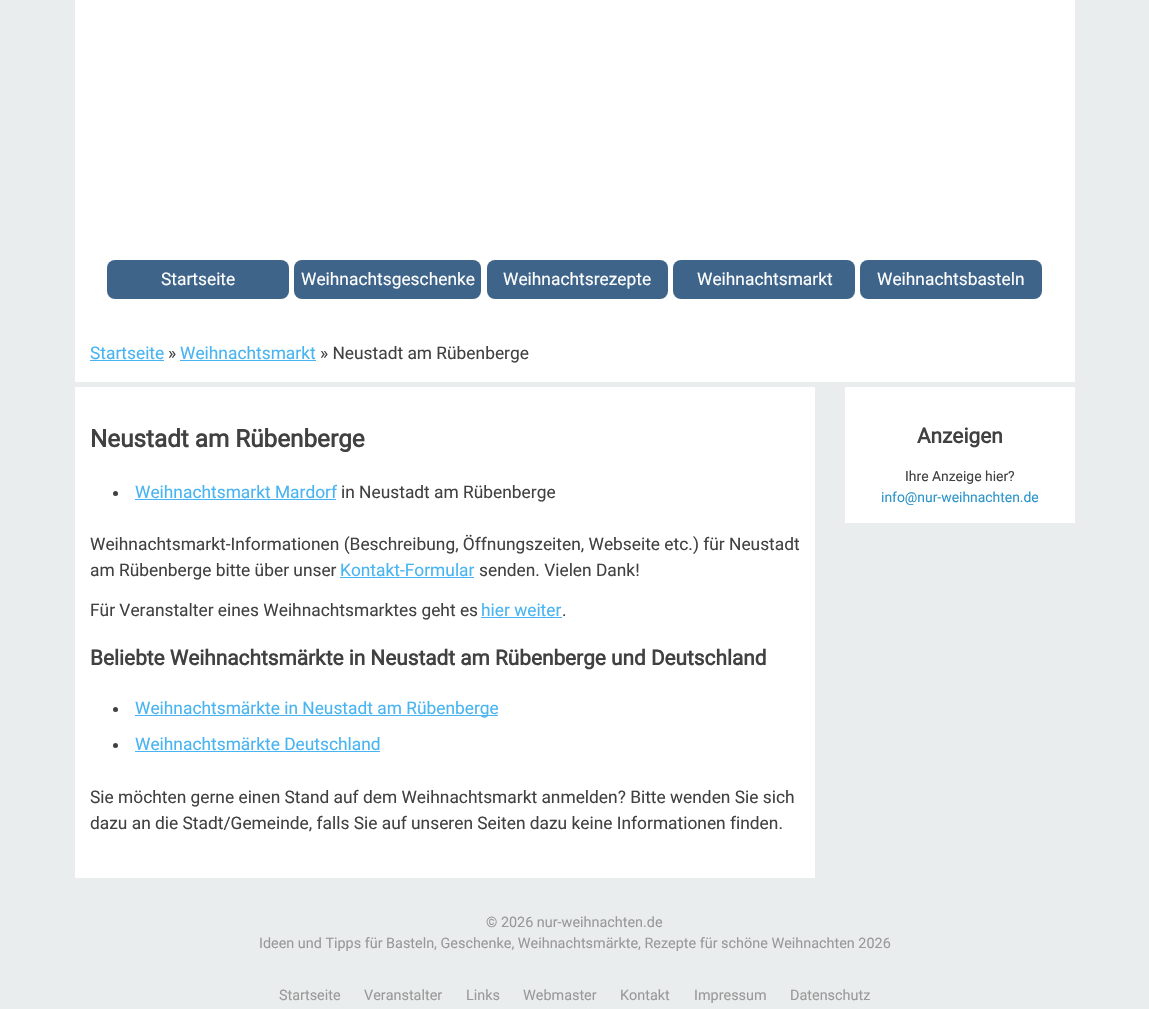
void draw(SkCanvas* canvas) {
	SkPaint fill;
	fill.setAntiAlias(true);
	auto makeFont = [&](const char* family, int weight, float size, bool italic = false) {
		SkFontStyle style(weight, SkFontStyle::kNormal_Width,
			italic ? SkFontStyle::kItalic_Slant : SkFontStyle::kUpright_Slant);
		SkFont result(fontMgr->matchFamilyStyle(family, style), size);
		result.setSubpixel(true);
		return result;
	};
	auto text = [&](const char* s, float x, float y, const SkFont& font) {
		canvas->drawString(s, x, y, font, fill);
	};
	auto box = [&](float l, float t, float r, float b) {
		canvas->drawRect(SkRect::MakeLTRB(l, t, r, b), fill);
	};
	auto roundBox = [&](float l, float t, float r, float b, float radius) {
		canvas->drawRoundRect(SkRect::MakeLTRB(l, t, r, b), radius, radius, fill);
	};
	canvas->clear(0xFFEAEDED);
	fill.setColor(0xFFFFFFFF);
	box(75, 0, 1075, 382);
	fill.setColor(0xFF3E648A);
	roundBox(107, 260, 289, 299, 8);
	roundBox(294, 260, 481, 299, 8);
	roundBox(487, 260, 668, 299, 8);
	roundBox(673, 260, 855, 299, 8);
	roundBox(860, 260, 1042, 299, 8);
	fill.setColor(0xFF48B4F2);
	box(90, 360, 164, 361);
	box(180, 360, 316, 361);
	fill.setColor(0xFFFFFFFF);
	box(75, 387, 815, 878);
	fill.setColor(0xFF414141);
	canvas->drawCircle(115.5f, 493.5f, 2.5f, fill);
	fill.setColor(0xFF48B4F2);
	box(135, 499, 336, 500);
	box(340, 577, 474, 578);
	box(481, 617, 562, 618);
	fill.setColor(0xFF414141);
	canvas->drawCircle(115.5f, 709.5f, 2.5f, fill);
	fill.setColor(0xFF48B4F2);
	box(135, 715, 498, 716);
	fill.setColor(0xFF414141);
	canvas->drawCircle(115.5f, 745.5f, 2.5f, fill);
	fill.setColor(0xFF48B4F2);
	box(135, 751, 380, 752);
	fill.setColor(0xFFFFFFFF);
	box(845, 387, 1075, 523);
	auto font1 = makeFont("Roboto", 400, 17.35f);
	text("Startseite", 161, 285, font1);
	text("Weihnachtsgeschenke", 301, 285, font1);
	text("Weihnachtsrezepte", 503, 285, font1);
	text("Weihnachtsmarkt", 697, 285, font1);
	text("Weihnachtsbasteln", 877, 285, font1);
	fill.setColor(0xFF48B4F2);
	text("Startseite", 90, 359, font1);
	fill.setColor(0xFF414141);
	text("»", 168, 359, font1);
	fill.setColor(0xFF48B4F2);
	text("Weihnachtsmarkt", 180, 359, font1);
	fill.setColor(0xFF414141);
	text("» Neustadt am Rübenberge", 320, 359, font1);
	auto font2 = makeFont("Roboto", 700, 24.25f);
	text("Neustadt am Rübenberge", 90, 447, font2);
	fill.setColor(0xFF48B4F2);
	text("Weihnachtsmarkt Mardorf", 135, 498, font1);
	fill.setColor(0xFF414141);
	text("in Neustadt am Rübenberge", 341, 498, font1);
	text("Weihnachtsmarkt-Informationen (Beschreibung, Öffnungszeiten, Webseite etc.) für Neustadt", 90, 550, font1);
	text("am Rübenberge bitte über unser", 90, 576, font1);
	fill.setColor(0xFF48B4F2);
	text("Kontakt-Formular", 340, 576, font1);
	fill.setColor(0xFF414141);
	text("senden. Vielen Dank!", 479, 576, font1);
	text("Für Veranstalter eines Weihnachtsmarktes geht es", 90, 616, font1);
	fill.setColor(0xFF48B4F2);
	text("hier weiter", 481, 616, font1);
	fill.setColor(0xFF414141);
	text(".", 562, 616, font1);
	auto font3 = makeFont("Roboto", 700, 20.8f);
	text("Beliebte Weihnachtsmärkte in Neustadt am Rübenberge und Deutschland", 90, 665, font3);
	fill.setColor(0xFF48B4F2);
	text("Weihnachtsmärkte in Neustadt am Rübenberge", 135, 714, font1);
	text("Weihnachtsmärkte Deutschland", 135, 750, font1);
	fill.setColor(0xFF414141);
	text("Sie möchten gerne einen Stand auf dem Weihnachtsmarkt anmelden? Bitte wenden Sie sich", 90, 803, font1);
	text("dazu an die Stadt/Gemeinde, falls Sie auf unseren Seiten dazu keine Informationen finden.", 90, 829, font1);
	text("Anzeigen", 917, 443, font3);
	auto font4 = makeFont("Roboto", 400, 13.9f);
	text("Ihre Anzeige hier?", 905, 481, font4);
	fill.setColor(0xFF2D95CA);
	text("info@nur-weihnachten.de", 881, 502, font4);
	auto font5 = makeFont("Roboto", 400, 14.4f);
	fill.setColor(0xFF999999);
	text("© 2026 nur-weihnachten.de", 486, 927, font5);
	text("Ideen und Tipps für Basteln, Geschenke, Weihnachtsmärkte, Rezepte für schöne Weihnachten 2026", 259, 948, font5);
	text("Startseite", 279, 1000, font5);
	text("Veranstalter", 364, 1000, font5);
	text("Links", 466, 1000, font5);
	text("Webmaster", 523, 1000, font5);
	text("Kontakt", 620, 1000, font5);
	text("Impressum", 694, 1000, font5);
	text("Datenschutz", 790, 1000, font5);
}
